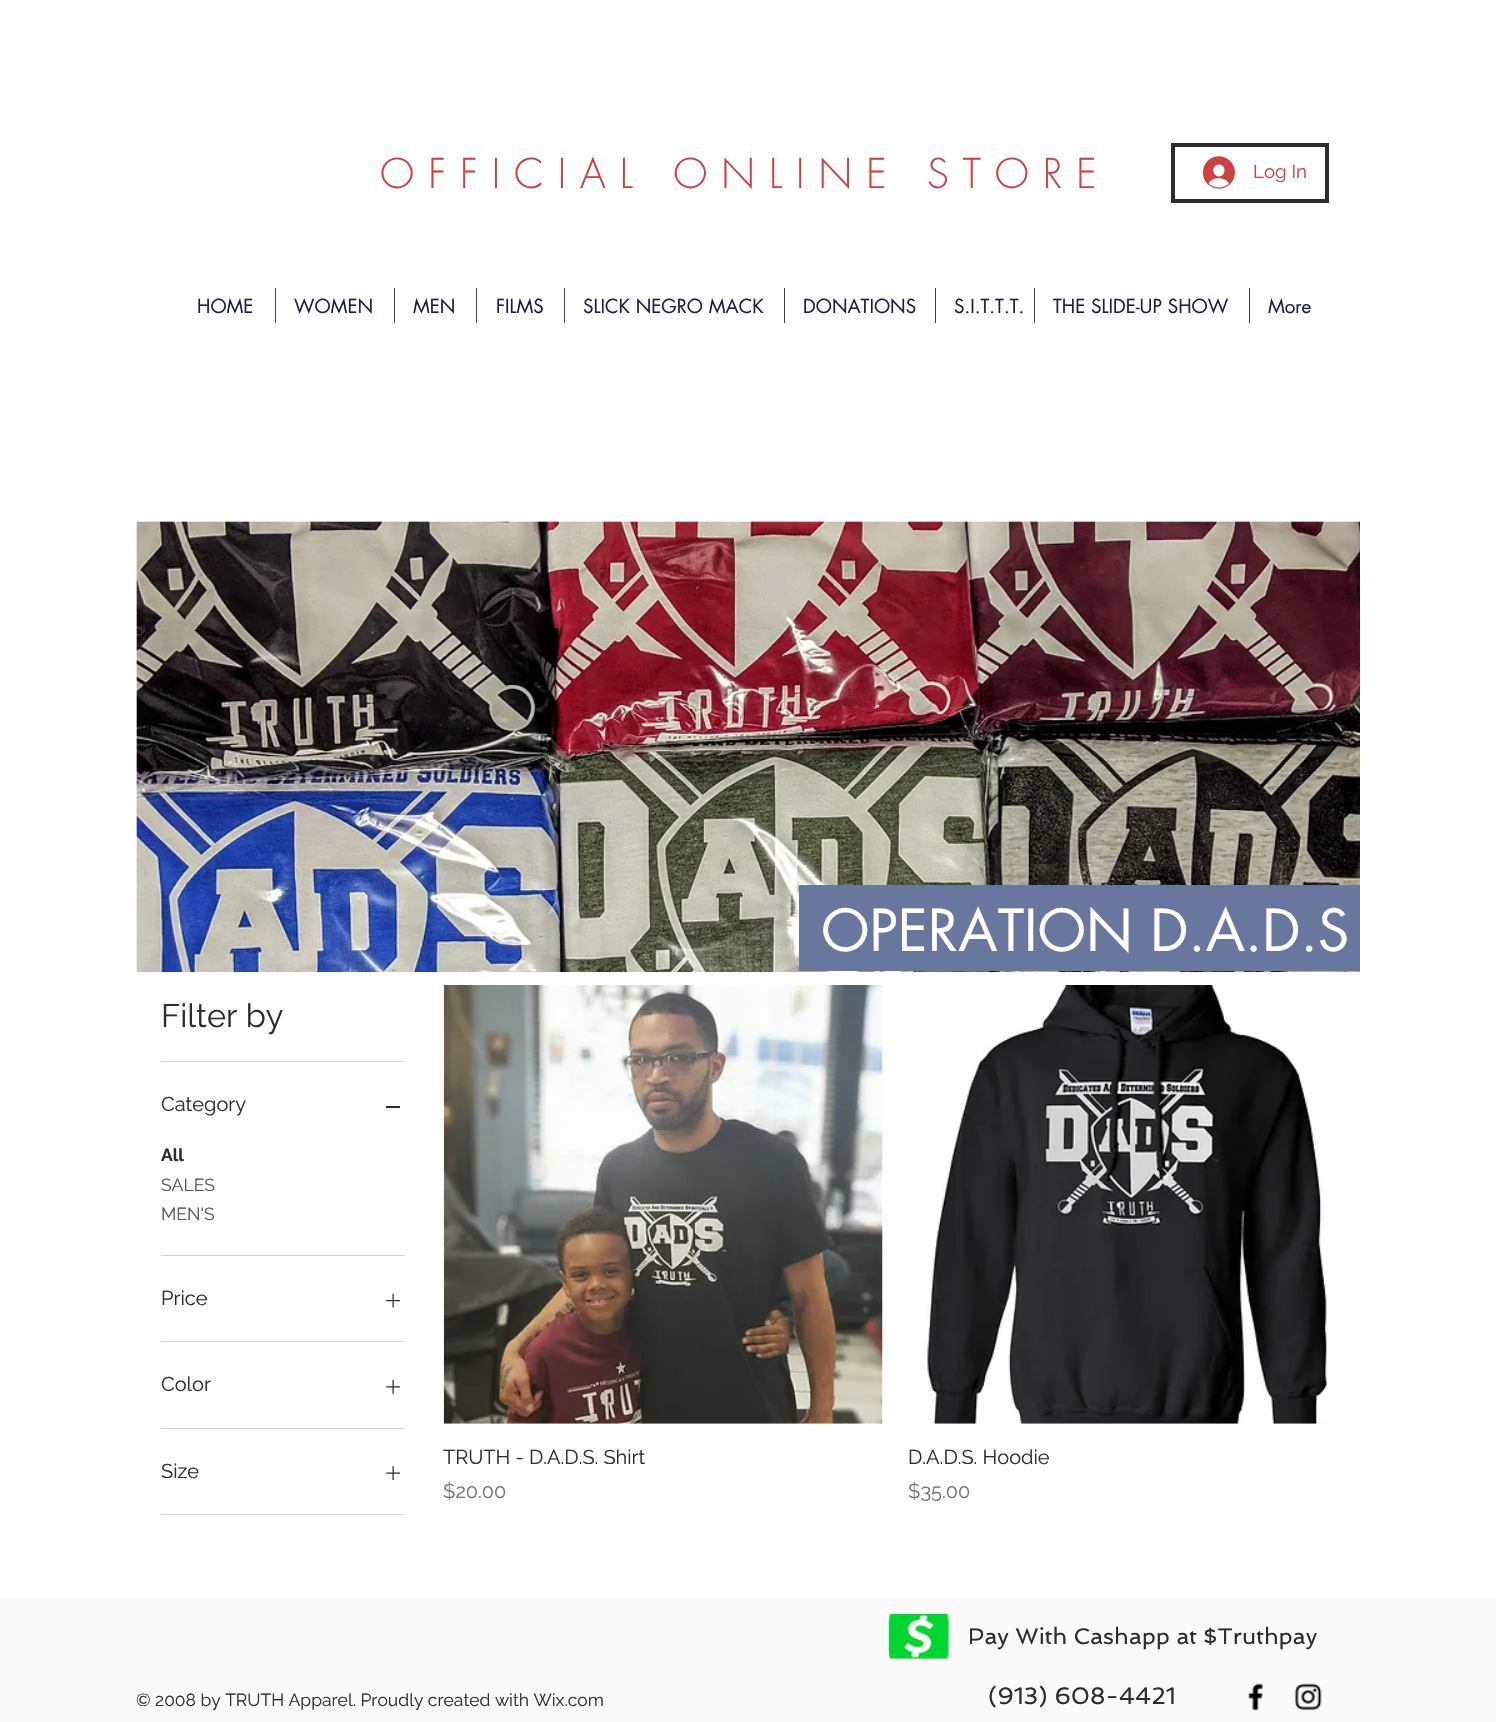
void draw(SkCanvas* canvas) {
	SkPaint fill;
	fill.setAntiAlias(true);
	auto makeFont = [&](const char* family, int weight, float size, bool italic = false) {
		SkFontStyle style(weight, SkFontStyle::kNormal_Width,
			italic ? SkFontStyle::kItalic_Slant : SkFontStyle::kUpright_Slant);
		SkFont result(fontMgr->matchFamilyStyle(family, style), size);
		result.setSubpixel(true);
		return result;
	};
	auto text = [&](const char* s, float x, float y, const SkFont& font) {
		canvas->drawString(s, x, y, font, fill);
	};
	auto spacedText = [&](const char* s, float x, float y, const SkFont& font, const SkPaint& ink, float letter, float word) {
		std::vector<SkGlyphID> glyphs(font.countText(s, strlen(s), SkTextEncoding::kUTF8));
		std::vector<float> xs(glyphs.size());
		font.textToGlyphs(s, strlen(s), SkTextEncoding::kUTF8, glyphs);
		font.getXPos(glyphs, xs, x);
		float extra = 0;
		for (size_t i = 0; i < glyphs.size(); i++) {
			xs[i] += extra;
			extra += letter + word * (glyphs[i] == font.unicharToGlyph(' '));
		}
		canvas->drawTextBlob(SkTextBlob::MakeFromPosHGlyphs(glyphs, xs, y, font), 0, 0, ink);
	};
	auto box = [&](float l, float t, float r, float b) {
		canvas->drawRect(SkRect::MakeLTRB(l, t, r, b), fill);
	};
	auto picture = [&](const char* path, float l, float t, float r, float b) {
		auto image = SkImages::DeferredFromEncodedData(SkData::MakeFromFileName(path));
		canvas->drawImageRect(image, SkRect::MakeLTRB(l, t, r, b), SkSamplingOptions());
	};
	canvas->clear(0xFFFFFFFF);
	fill.setStyle(SkPaint::kStroke_Style);
	fill.setStrokeWidth(4);
	fill.setColor(0xFF2C2C2B);
	canvas->drawRect(SkRect::MakeLTRB(1173, 145, 1327, 201), fill);
	picture("image0.png", 1203, 156, 1235, 189);
	fill.setStyle(SkPaint::kFill_Style);
	fill.setColor(0xFF414141);
	box(275, 288, 276, 323);
	box(394, 288, 395, 323);
	box(476, 288, 477, 323);
	box(564, 288, 565, 323);
	box(784, 288, 785, 323);
	box(935, 288, 936, 323);
	box(1034, 288, 1035, 323);
	box(1249, 288, 1250, 323);
	picture("image1.png", 136, 521, 1360, 973);
	fill.setColor(0xFF69769D);
	box(799, 885, 1360, 971);
	fill.setColor(0xFFD5D5D5);
	box(161, 1061, 405, 1062);
	box(161, 1255, 405, 1256);
	fill.setColor(0xFF2C2C2B);
	box(386, 1106, 400, 1108);
	fill.setColor(0xFFD5D5D5);
	box(161, 1341, 405, 1342);
	picture("image2.png", 386, 1293, 400, 1308);
	box(161, 1428, 405, 1429);
	picture("image3.png", 386, 1380, 400, 1394);
	box(161, 1514, 405, 1515);
	picture("image4.png", 386, 1466, 400, 1480);
	picture("image5.png", 443, 985, 883, 1424);
	picture("image6.png", 927, 985, 1328, 1424);
	fill.setColor(0xFFFAFAFA);
	box(0, 1598, 1496, 1722);
	picture("image7.png", 888, 1613, 949, 1659);
	picture("image8.png", 1248, 1683, 1263, 1711);
	picture("image9.png", 1294, 1683, 1322, 1711);
	auto font1 = makeFont("futura", 300, 40);
	fill.setColor(0xFFCC4141);
	spacedText("OFFICIAL ONLINE STORE", 380, 188, font1, fill, 14, 0);
	auto font2 = makeFont("Raleway", 400, 18.75f);
	text("Log In", 1253, 178, font2);
	auto font3 = makeFont("futura", 400, 18.75f);
	fill.setColor(0xFF15203E);
	text("HOME", 197, 313, font3);
	text("WOMEN", 294, 313, font3);
	text("MEN", 413, 313, font3);
	text("FILMS", 496, 313, font3);
	text("SLICK NEGRO MACK", 583, 313, font3);
	text("DONATIONS", 803, 313, font3);
	text("S.I.T.T.T.", 954, 313, font3);
	text("THE SLIDE-UP SHOW", 1053, 313, font3);
	text("More", 1268, 313, font3);
	auto font4 = makeFont("futura", 400, 56.25f);
	fill.setColor(0xFFFFFFFF);
	text("OPERATION D.A.D.S", 821, 951, font4);
	auto font5 = makeFont("Raleway", 400, 32.5f);
	fill.setColor(0xFF2C2C2B);
	text("Filter by", 161, 1027, font5);
	auto font6 = makeFont("Raleway", 400, 20);
	text("Category", 161, 1111, font6);
	auto font7 = makeFont("Raleway", 700, 17.5f);
	text("All", 161, 1161, font7);
	auto font8 = makeFont("Raleway", 400, 17.5f);
	fill.setColor(0xFF565655);
	text("SALES", 161, 1191, font8);
	text("MEN'S", 161, 1220, font8);
	fill.setColor(0xFF2C2C2B);
	text("Price", 161, 1305, font6);
	text("Color", 161, 1391, font6);
	text("Size", 161, 1478, font6);
	text("TRUTH - D.A.D.S. Shirt", 443, 1464, font6);
	fill.setColor(0xFF727272);
	text("$20.00", 443, 1498, font6);
	fill.setColor(0xFF2C2C2B);
	text("D.A.D.S. Hoodie", 908, 1464, font6);
	fill.setColor(0xFF727272);
	text("$35.00", 908, 1498, font6);
	auto font9 = makeFont("Spinnaker", 400, 22.5f);
	fill.setColor(0xFF2C2C2B);
	text("Pay With Cashapp at $Truthpay", 968, 1644, font9);
	text("© 2008 by TRUTH Apparel. Proudly created with Wix.com", 136, 1706, font8);
	auto font10 = makeFont("Spinnaker", 400, 23.75f);
	text("(913) 608-4421", 988, 1704, font10);
}
